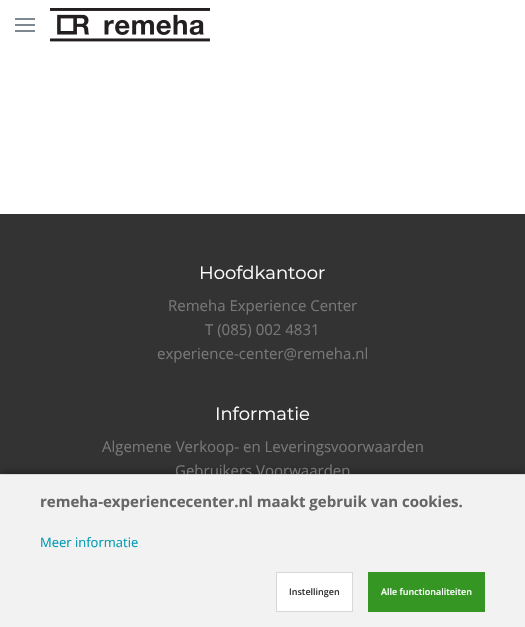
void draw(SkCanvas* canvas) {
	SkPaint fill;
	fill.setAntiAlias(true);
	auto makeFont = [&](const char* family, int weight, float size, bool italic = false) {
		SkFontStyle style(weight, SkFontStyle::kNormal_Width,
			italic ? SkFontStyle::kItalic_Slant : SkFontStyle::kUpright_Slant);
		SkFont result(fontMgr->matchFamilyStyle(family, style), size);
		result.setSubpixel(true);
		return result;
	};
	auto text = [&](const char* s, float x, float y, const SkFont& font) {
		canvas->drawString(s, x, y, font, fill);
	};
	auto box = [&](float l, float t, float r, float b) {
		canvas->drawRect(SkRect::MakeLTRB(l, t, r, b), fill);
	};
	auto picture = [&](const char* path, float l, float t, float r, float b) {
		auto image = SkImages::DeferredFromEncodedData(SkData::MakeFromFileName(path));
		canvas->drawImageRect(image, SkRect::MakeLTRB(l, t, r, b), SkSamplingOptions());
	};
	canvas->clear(0xFFFFFFFF);
	fill.setColor(0xFF7E8890);
	box(15, 18, 35, 20);
	box(15, 24, 35, 26);
	box(15, 30, 35, 32);
	picture("image0.png", 50, 8, 210, 42);
	fill.setColor(0xFF333333);
	box(0, 214, 525, 474);
	fill.setColor(0x80000000);
	fill.setMaskFilter(SkMaskFilter::MakeBlur(kNormal_SkBlurStyle, 5));
	canvas->drawRect(SkRect::MakeLTRB(0, 474, 525, 627), fill);
	fill.setMaskFilter(nullptr);
	auto font1 = makeFont("Montserrat", 400, 18);
	fill.setColor(0xFFFFFFFF);
	text("Hoofdkantoor", 199, 279, font1);
	auto font2 = makeFont("Open Sans", 400, 15);
	fill.setColor(0xFF777777);
	text("Remeha Experience Center", 168, 311, font2);
	text("T (085) 002 4831", 205, 335, font2);
	text("experience-center@remeha.nl", 157, 359, font2);
	fill.setColor(0xFFFFFFFF);
	text("Informatie", 215, 420, font1);
	fill.setColor(0xFF777777);
	text("Algemene Verkoop- en Leveringsvoorwaarden", 102, 452, font2);
	text("Gebruikers Voorwaarden", 175, 476, font2);
	fill.setColor(0xFFF2F2F2);
	box(0, 475, 525, 627);
	fill.setColor(0xFFD8D8D8);
	box(0, 474, 525, 475);
	auto font3 = makeFont("Open Sans", 700, 15);
	fill.setColor(0xFF666666);
	text("remeha-experiencecenter.nl maakt gebruik van cookies.", 40, 507, font3);
	auto font4 = makeFont("Open Sans", 400, 13);
	fill.setColor(0xFF009AB4);
	text("Meer informatie", 40, 547, font4);
	fill.setColor(0xFFFFFFFF);
	canvas->drawRect(SkRect::MakeLTRB(276.5f, 572.5f, 352.5f, 611.5f), fill);
	fill.setStyle(SkPaint::kStroke_Style);
	fill.setStrokeWidth(1);
	fill.setColor(0xFFD8D8D8);
	canvas->drawRect(SkRect::MakeLTRB(276.5f, 572.5f, 352.5f, 611.5f), fill);
	auto font5 = makeFont("Open Sans", 600, 9);
	fill.setStyle(SkPaint::kFill_Style);
	fill.setColor(0xFF333333);
	text("Instellingen", 289, 595, font5);
	fill.setColor(0xFF359624);
	box(368, 572, 485, 612);
	fill.setColor(0xFFFFFFFF);
	text("Alle functionaliteiten", 381, 595, font5);
}
